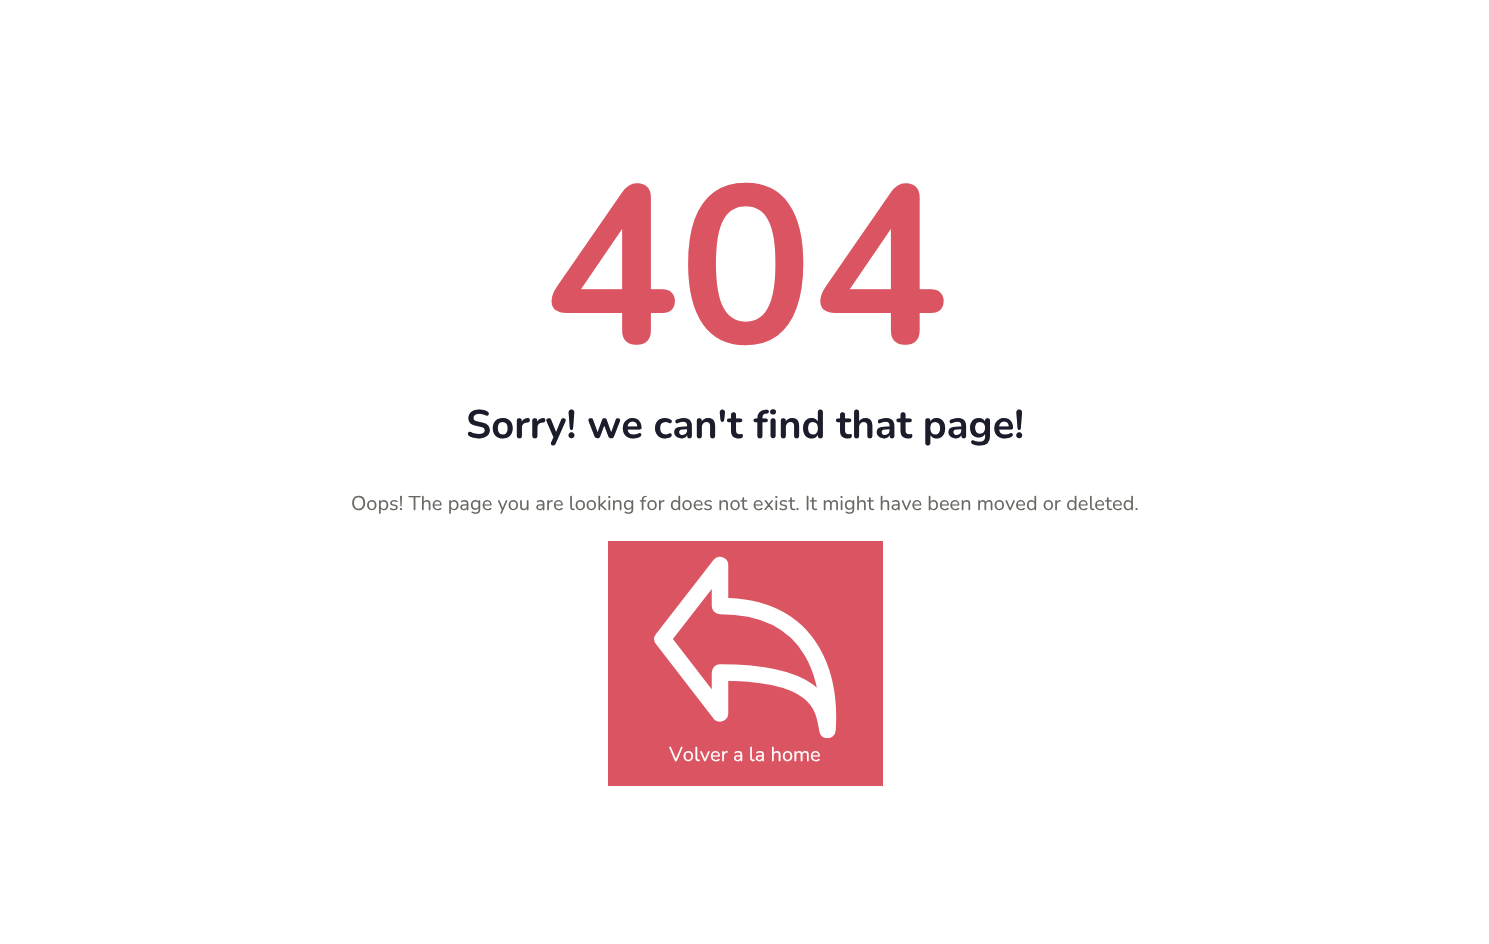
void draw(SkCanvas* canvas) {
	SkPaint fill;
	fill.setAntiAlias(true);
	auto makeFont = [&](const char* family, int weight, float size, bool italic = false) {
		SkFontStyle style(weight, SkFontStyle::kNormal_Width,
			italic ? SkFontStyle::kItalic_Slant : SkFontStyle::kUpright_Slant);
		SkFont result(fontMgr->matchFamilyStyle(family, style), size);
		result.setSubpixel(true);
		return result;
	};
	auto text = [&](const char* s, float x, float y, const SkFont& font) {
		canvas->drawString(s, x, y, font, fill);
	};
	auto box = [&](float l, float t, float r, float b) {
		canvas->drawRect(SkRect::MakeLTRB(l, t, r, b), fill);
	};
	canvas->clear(0xFFFFFFFF);
	fill.setColor(0xFFDB5461);
	box(608, 541, 883, 786);
	canvas->save();
	canvas->clipRect(SkRect::MakeLTRB(650, 556, 840, 738));
	fill.setStyle(SkPaint::kStroke_Style);
	fill.setStrokeWidth(16.5f);
	fill.setStrokeCap(SkPaint::kRound_Cap);
	fill.setStrokeJoin(SkPaint::kRound_Join);
	fill.setColor(0xFFFFFFFF);
	canvas->drawPath(SkPathBuilder().moveTo(662.5f, 639).lineTo(720, 565).lineTo(720, 606).cubicTo(819, 606, 830.5f, 686, 827.5f, 730).cubicTo(823.5f, 708, 821.5f, 672.5f, 720, 672.5f).lineTo(720, 713.5f).close().detach(), fill);
	canvas->restore();
	auto font1 = makeFont("Nunito", 700, 224);
	fill.setStyle(SkPaint::kFill_Style);
	fill.setColor(0xFFDB5461);
	text("404", 544, 343, font1);
	auto font2 = makeFont("Nunito", 700, 39.9f);
	fill.setColor(0xFF1B1D2B);
	text("Sorry! we can't find that page!", 466, 438, font2);
	auto font3 = makeFont("Nunito", 400, 20);
	fill.setColor(0xFF686963);
	text("Oops! The page you are looking for does not exist. It might have been moved or deleted.", 351, 510, font3);
	fill.setColor(0xFFFFFFFF);
	text("Volver a la home", 669, 761, font3);
}
